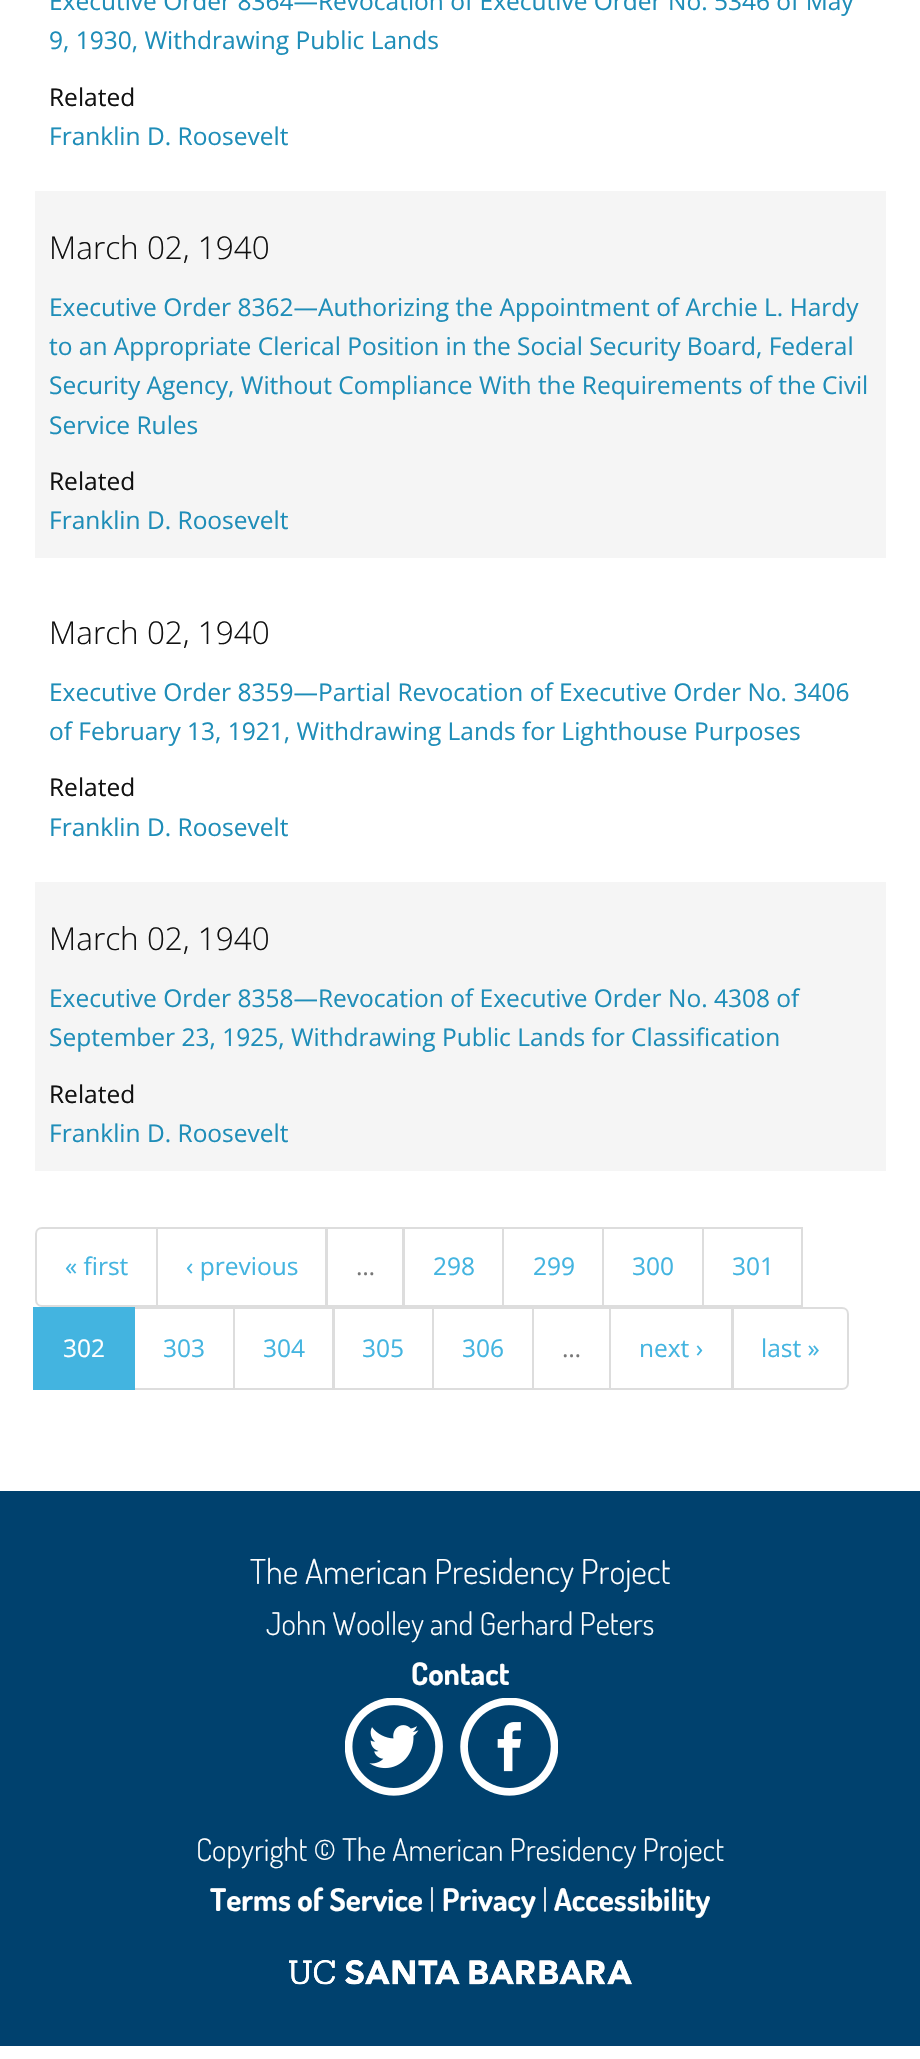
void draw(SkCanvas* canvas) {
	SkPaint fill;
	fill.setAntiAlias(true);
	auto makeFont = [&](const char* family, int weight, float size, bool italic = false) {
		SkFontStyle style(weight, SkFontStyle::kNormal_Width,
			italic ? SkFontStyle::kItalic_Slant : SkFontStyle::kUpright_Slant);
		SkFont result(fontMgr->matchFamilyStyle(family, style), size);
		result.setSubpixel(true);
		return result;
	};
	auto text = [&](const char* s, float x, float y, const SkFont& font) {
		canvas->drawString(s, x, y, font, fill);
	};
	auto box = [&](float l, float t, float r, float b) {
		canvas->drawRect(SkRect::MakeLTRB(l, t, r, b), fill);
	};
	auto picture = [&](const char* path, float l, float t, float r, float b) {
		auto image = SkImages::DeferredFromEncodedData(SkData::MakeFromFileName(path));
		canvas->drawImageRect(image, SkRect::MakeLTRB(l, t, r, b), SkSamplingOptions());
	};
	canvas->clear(0xFFFFFFFF);
	fill.setColor(0xFFF5F5F5);
	box(35, 191, 886, 558);
	box(35, 882, 886, 1171);
	fill.setStyle(SkPaint::kStroke_Style);
	fill.setStrokeWidth(2);
	fill.setColor(0xFFDDDDDD);
	canvas->drawPath(SkPathBuilder().moveTo(42, 1228).lineTo(157, 1228).lineTo(157, 1306).lineTo(42, 1306).cubicTo(38.5f, 1306, 36, 1303.5f, 36, 1300).lineTo(36, 1234).cubicTo(36, 1230.5f, 38.5f, 1228, 42, 1228).close().detach(), fill);
	canvas->drawRect(SkRect::MakeLTRB(157, 1228, 326, 1306), fill);
	canvas->drawRect(SkRect::MakeLTRB(327, 1228, 403, 1306), fill);
	canvas->drawRect(SkRect::MakeLTRB(404, 1228, 503, 1306), fill);
	canvas->drawRect(SkRect::MakeLTRB(503, 1228, 603, 1306), fill);
	canvas->drawRect(SkRect::MakeLTRB(603, 1228, 703, 1306), fill);
	canvas->drawRect(SkRect::MakeLTRB(703, 1228, 802, 1306), fill);
	canvas->drawRect(SkRect::MakeLTRB(134, 1308, 234, 1389), fill);
	fill.setStyle(SkPaint::kFill_Style);
	fill.setColor(0xFF43B4E0);
	box(33, 1307, 135, 1390);
	fill.setStyle(SkPaint::kStroke_Style);
	fill.setColor(0xFFDDDDDD);
	canvas->drawRect(SkRect::MakeLTRB(234, 1308, 333, 1389), fill);
	canvas->drawRect(SkRect::MakeLTRB(334, 1308, 433, 1389), fill);
	canvas->drawRect(SkRect::MakeLTRB(433, 1308, 533, 1389), fill);
	canvas->drawRect(SkRect::MakeLTRB(533, 1308, 610, 1389), fill);
	canvas->drawRect(SkRect::MakeLTRB(610, 1308, 732, 1389), fill);
	fill.setStyle(SkPaint::kFill_Style);
	fill.setColor(0xFFFFFFFF);
	canvas->drawPath(SkPathBuilder().moveTo(733, 1308).lineTo(842, 1308).cubicTo(845.5f, 1308, 848, 1310.5f, 848, 1314).lineTo(848, 1383).cubicTo(848, 1386.5f, 845.5f, 1389, 842, 1389).lineTo(733, 1389).close().detach(), fill);
	fill.setStyle(SkPaint::kStroke_Style);
	fill.setColor(0xFFDDDDDD);
	canvas->drawPath(SkPathBuilder().moveTo(733, 1308).lineTo(842, 1308).cubicTo(845.5f, 1308, 848, 1310.5f, 848, 1314).lineTo(848, 1383).cubicTo(848, 1386.5f, 845.5f, 1389, 842, 1389).lineTo(733, 1389).close().detach(), fill);
	fill.setStyle(SkPaint::kFill_Style);
	fill.setColor(0xFF00416E);
	box(0, 1491, 920, 2046);
	picture("image0.png", 345, 1698, 443, 1796);
	picture("image1.png", 460, 1698, 558, 1796);
	picture("image2.png", 289, 1960, 632, 1985);
	auto font1 = makeFont("Open Sans", 400, 24.5f);
	fill.setColor(0xFF1E8DB8);
	text("Executive Order 8364—Revocation of Executive Order No. 5346 of May", 49, 10, font1);
	text("9, 1930, Withdrawing Public Lands", 49, 49, font1);
	fill.setColor(0xFF111111);
	text("Related", 49, 106, font1);
	fill.setColor(0xFF1E8DB8);
	text("Franklin D. Roosevelt", 49, 145, font1);
	auto font2 = makeFont("Open Sans", 300, 31.5f);
	fill.setColor(0xFF111111);
	text("March 02, 1940", 49, 259, font2);
	fill.setColor(0xFF1E8DB8);
	text("Executive Order 8362—Authorizing the Appointment of Archie L. Hardy", 49, 316, font1);
	text("to an Appropriate Clerical Position in the Social Security Board, Federal", 49, 355, font1);
	text("Security Agency, Without Compliance With the Requirements of the Civil", 49, 394, font1);
	text("Service Rules", 49, 434, font1);
	fill.setColor(0xFF111111);
	text("Related", 49, 490, font1);
	fill.setColor(0xFF1E8DB8);
	text("Franklin D. Roosevelt", 49, 529, font1);
	fill.setColor(0xFF111111);
	text("March 02, 1940", 49, 644, font2);
	fill.setColor(0xFF1E8DB8);
	text("Executive Order 8359—Partial Revocation of Executive Order No. 3406", 49, 701, font1);
	text("of February 13, 1921, Withdrawing Lands for Lighthouse Purposes", 49, 740, font1);
	fill.setColor(0xFF111111);
	text("Related", 49, 796, font1);
	fill.setColor(0xFF1E8DB8);
	text("Franklin D. Roosevelt", 49, 836, font1);
	fill.setColor(0xFF111111);
	text("March 02, 1940", 49, 950, font2);
	fill.setColor(0xFF1E8DB8);
	text("Executive Order 8358—Revocation of Executive Order No. 4308 of", 49, 1007, font1);
	text("September 23, 1925, Withdrawing Public Lands for Classification", 49, 1046, font1);
	fill.setColor(0xFF111111);
	text("Related", 49, 1103, font1);
	fill.setColor(0xFF1E8DB8);
	text("Franklin D. Roosevelt", 49, 1142, font1);
	fill.setColor(0xFF43B4E0);
	text("« first", 65, 1275, font1);
	text("‹ previous", 186, 1275, font1);
	fill.setColor(0xFF777777);
	text("…", 356, 1275, font1);
	fill.setColor(0xFF43B4E0);
	text("298", 433, 1275, font1);
	text("299", 533, 1275, font1);
	text("300", 632, 1275, font1);
	text("301", 732, 1275, font1);
	fill.setColor(0xFFFFFFFF);
	text("302", 63, 1357, font1);
	fill.setColor(0xFF43B4E0);
	text("303", 163, 1357, font1);
	text("304", 263, 1357, font1);
	text("305", 362, 1357, font1);
	text("306", 462, 1357, font1);
	fill.setColor(0xFF777777);
	text("…", 562, 1357, font1);
	fill.setColor(0xFF43B4E0);
	text("next ›", 639, 1357, font1);
	text("last »", 761, 1357, font1);
	auto font3 = makeFont("Dosis", 300, 34.25f);
	fill.setColor(0xFFFFFFFF);
	text("The American Presidency Project", 250, 1584, font3);
	auto font4 = makeFont("Dosis", 300, 31.1f);
	text("John Woolley and Gerhard Peters", 266, 1635, font4);
	auto font5 = makeFont("Dosis", 700, 31.1f);
	text("Contact", 411, 1685, font5);
	text("Copyright © The American Presidency Project", 196, 1861, font4);
	text("Terms of Service", 210, 1911, font5);
	text("|", 429, 1911, font4);
	text("Privacy", 442, 1911, font5);
	text("|", 542, 1911, font4);
	text("Accessibility", 554, 1911, font5);
}
